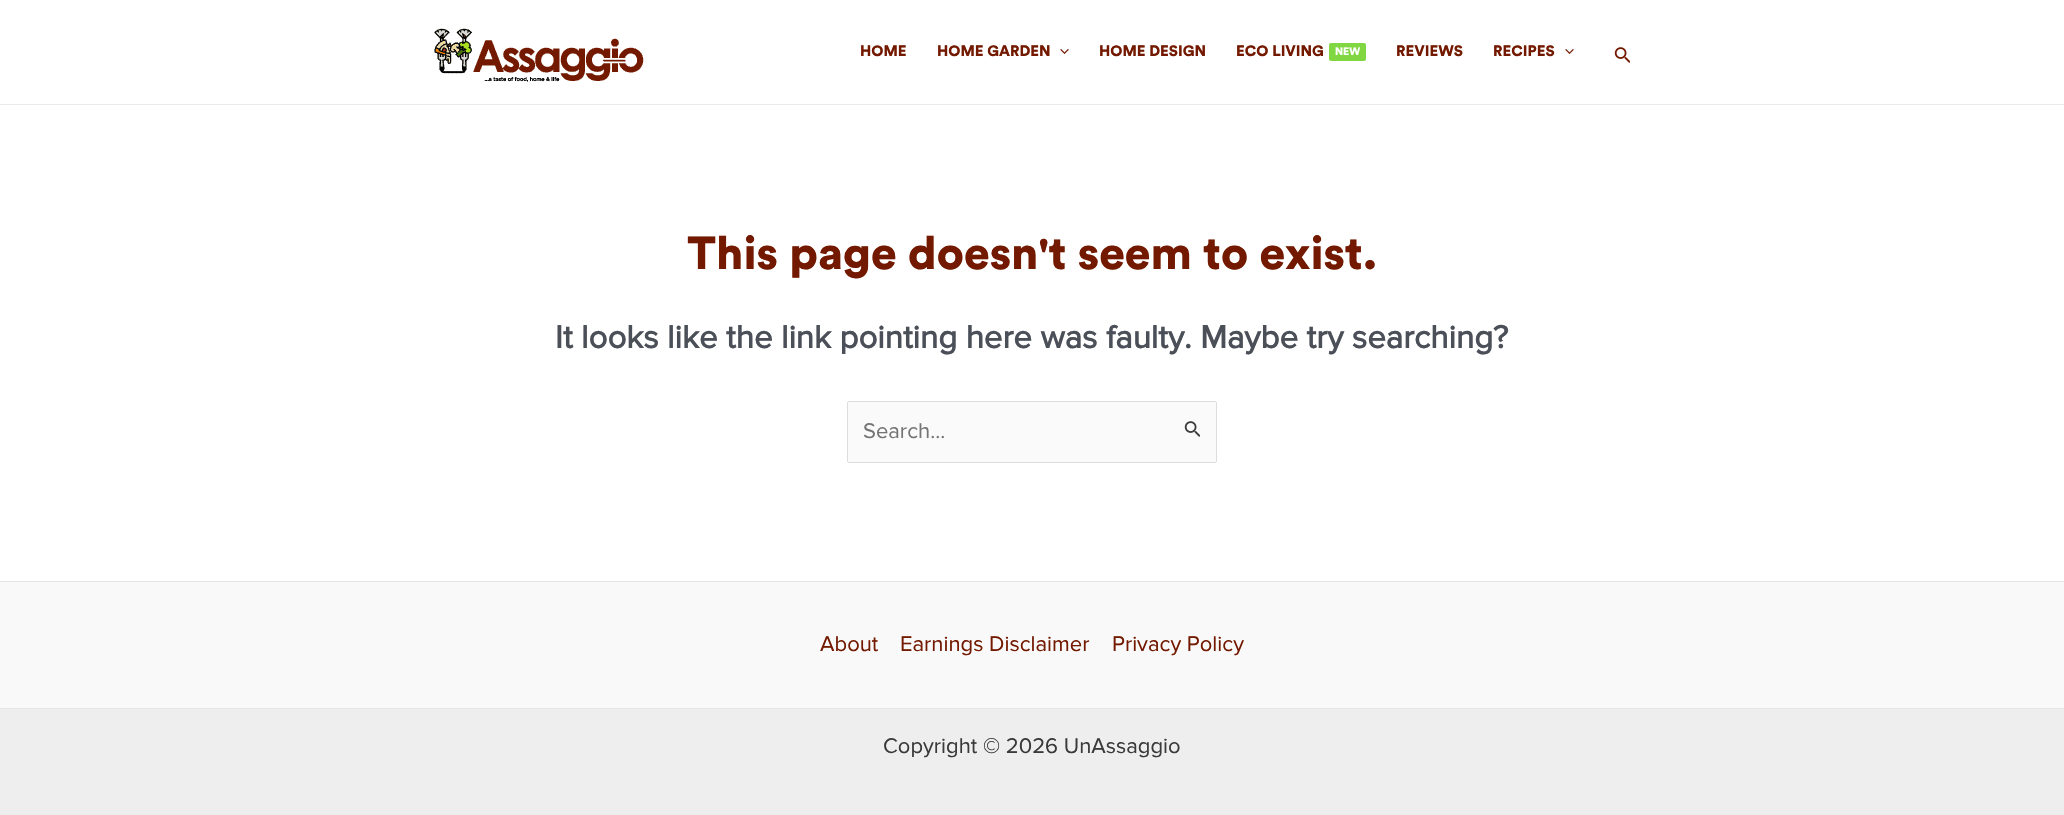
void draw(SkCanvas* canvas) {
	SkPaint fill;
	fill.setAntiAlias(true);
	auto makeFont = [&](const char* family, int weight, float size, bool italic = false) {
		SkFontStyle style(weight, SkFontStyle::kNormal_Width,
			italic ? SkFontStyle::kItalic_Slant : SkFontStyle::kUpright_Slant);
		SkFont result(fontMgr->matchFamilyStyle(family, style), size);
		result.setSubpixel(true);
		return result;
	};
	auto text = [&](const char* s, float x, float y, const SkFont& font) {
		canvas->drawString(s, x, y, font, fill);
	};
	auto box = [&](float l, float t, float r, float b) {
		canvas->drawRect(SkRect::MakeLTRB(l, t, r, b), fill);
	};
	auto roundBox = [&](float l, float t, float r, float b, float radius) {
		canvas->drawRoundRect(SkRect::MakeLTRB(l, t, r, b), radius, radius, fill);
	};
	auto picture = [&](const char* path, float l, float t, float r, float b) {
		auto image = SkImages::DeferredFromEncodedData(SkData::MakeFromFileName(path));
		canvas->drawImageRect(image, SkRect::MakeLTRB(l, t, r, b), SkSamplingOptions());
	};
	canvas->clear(0xFFFFFFFF);
	fill.setColor(0xFFEAEAEA);
	box(0, 104, 2064, 105);
	picture("image0.png", 434, 28, 644, 82);
	picture("image1.png", 1060, 49, 1069, 54);
	fill.setColor(0xFF81D742);
	roundBox(1329, 43, 1366, 61, 2);
	picture("image1.png", 1565, 49, 1574, 54);
	picture("image2.png", 1614, 47, 1630, 63);
	fill.setColor(0xFFFAFAFA);
	canvas->drawRoundRect(SkRect::MakeLTRB(847.5f, 401.5f, 1216.5f, 462.5f), 1.5f, 1.5f, fill);
	fill.setStyle(SkPaint::kStroke_Style);
	fill.setStrokeWidth(1);
	fill.setColor(0xFFDDDDDD);
	canvas->drawRoundRect(SkRect::MakeLTRB(847.5f, 401.5f, 1216.5f, 462.5f), 1.5f, 1.5f, fill);
	picture("image3.png", 1184, 421, 1200, 437);
	fill.setStyle(SkPaint::kFill_Style);
	fill.setColor(0xFFF9F9F9);
	box(0, 582, 2064, 708);
	fill.setColor(0xFFE6E6E6);
	box(0, 581, 2064, 582);
	fill.setColor(0xFFEEEEEE);
	box(0, 709, 2064, 815);
	fill.setColor(0xFFE5E5E5);
	box(0, 708, 2064, 709);
	auto font1 = makeFont("Circular", 900, 15);
	fill.setColor(0xFF731900);
	text("HOME", 860, 56, font1);
	text("HOME GARDEN", 937, 56, font1);
	text("HOME DESIGN", 1099, 56, font1);
	text("ECO LIVING", 1236, 56, font1);
	auto font2 = makeFont("Circular", 900, 10.5f);
	fill.setColor(0xFFFFFFFF);
	text("NEW", 1335, 55, font2);
	fill.setColor(0xFF731900);
	text("REVIEWS", 1396, 56, font1);
	text("RECIPES", 1493, 56, font1);
	auto font3 = makeFont("Circular", 900, 46);
	text("This page doesn't seem to exist.", 687, 269, font3);
	auto font4 = makeFont("Proxima Nova", 700, 33);
	fill.setColor(0xFF4B4F58);
	text("It looks like the link pointing here was faulty. Maybe try searching?", 555, 348, font4);
	auto font5 = makeFont("Proxima Nova", 400, 22);
	fill.setColor(0xFF757575);
	text("Search...", 863, 438, font5);
	fill.setColor(0xFF731900);
	text("About", 820, 651, font5);
	text("Earnings Disclaimer", 900, 651, font5);
	text("Privacy Policy", 1112, 651, font5);
	fill.setColor(0xFF3A3A3A);
	text("Copyright © 2026 UnAssaggio", 883, 753, font5);
}
